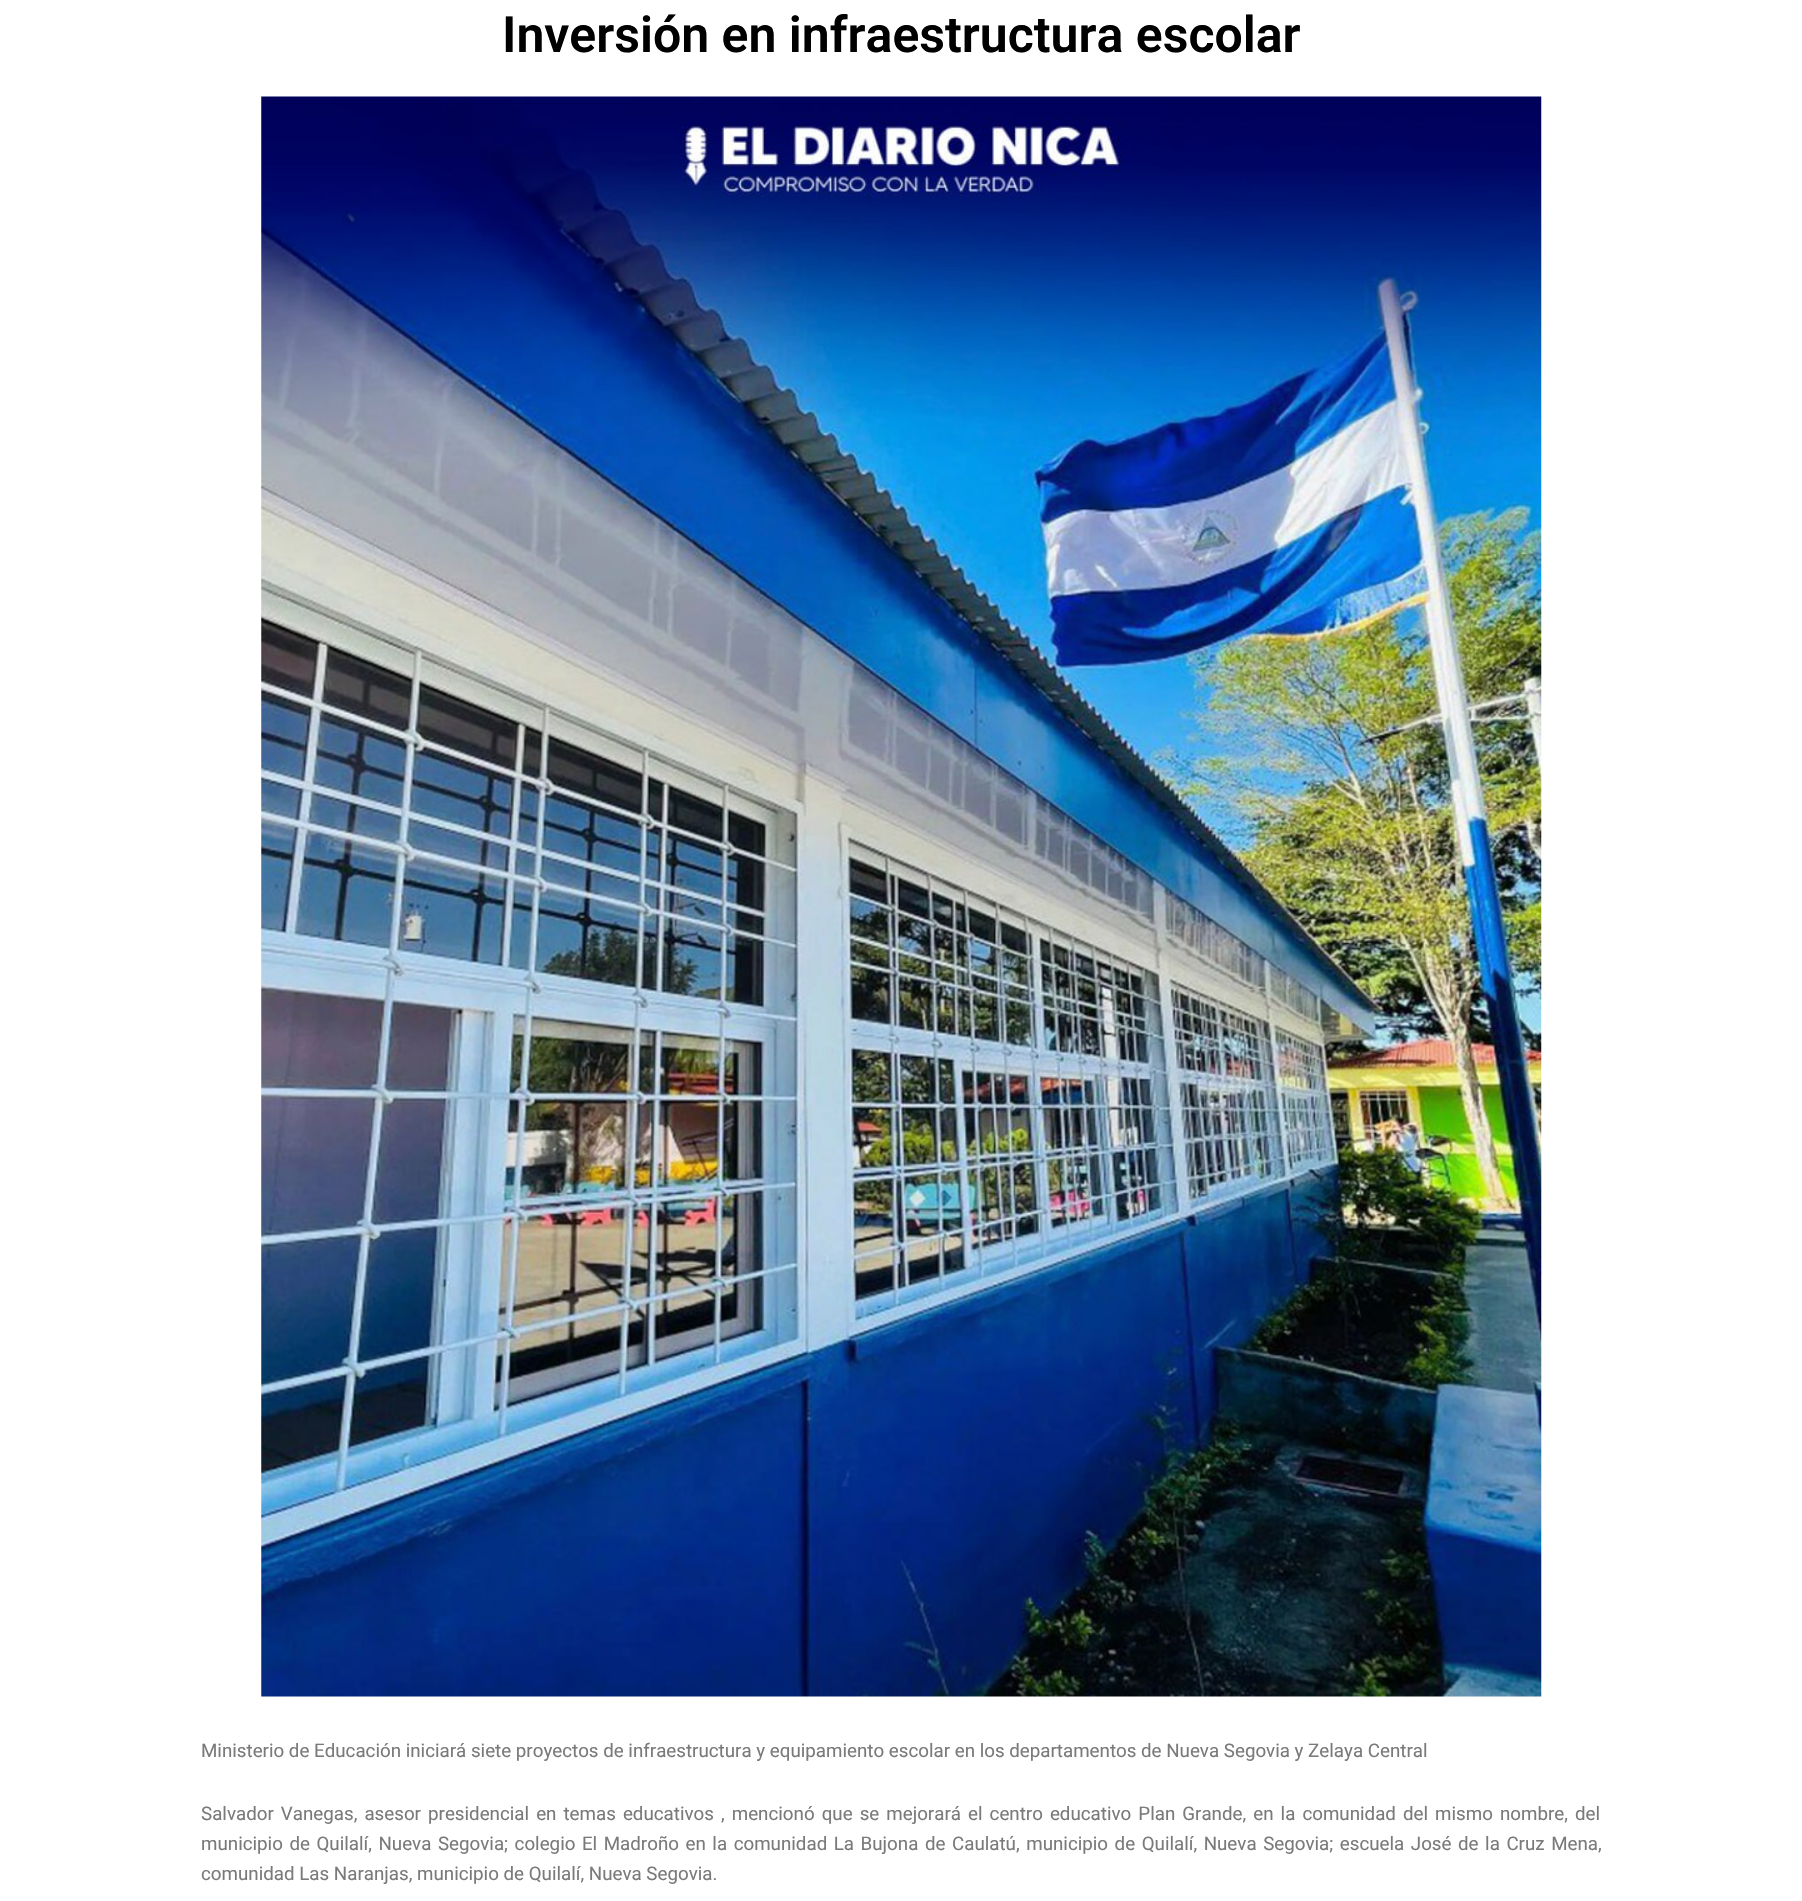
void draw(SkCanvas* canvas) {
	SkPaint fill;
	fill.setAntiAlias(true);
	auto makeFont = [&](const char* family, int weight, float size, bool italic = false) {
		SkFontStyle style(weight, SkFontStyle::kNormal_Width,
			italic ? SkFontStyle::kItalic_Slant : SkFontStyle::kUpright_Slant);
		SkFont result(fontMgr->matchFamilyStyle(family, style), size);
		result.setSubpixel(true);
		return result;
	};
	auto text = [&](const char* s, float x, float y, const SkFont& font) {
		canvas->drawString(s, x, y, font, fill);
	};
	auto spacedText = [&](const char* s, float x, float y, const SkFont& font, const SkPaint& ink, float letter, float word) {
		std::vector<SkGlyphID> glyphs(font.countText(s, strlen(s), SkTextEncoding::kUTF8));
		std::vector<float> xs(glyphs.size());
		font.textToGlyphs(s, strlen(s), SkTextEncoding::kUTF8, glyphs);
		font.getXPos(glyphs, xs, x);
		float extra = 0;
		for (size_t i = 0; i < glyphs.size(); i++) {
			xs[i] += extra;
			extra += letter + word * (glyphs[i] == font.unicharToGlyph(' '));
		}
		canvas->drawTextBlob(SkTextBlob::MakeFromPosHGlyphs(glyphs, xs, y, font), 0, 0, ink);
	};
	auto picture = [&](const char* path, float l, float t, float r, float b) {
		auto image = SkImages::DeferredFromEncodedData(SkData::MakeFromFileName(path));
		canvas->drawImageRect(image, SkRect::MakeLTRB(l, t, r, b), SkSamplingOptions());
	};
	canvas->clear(0xFFFFFFFF);
	picture("image0.png", 261, 96, 1542, 1697);
	auto font1 = makeFont("Roboto", 600, 50);
	fill.setColor(0xFF000000);
	text("Inversión en infraestructura escolar", 502, 52, font1);
	auto font2 = makeFont("Roboto", 400, 18.75f);
	fill.setColor(0xFF7A7A7A);
	text("Ministerio de Educación iniciará siete proyectos de infraestructura y equipamiento escolar en los departamentos de Nueva Segovia y Zelaya Central", 201, 1757, font2);
	spacedText("Salvador Vanegas, asesor presidencial en temas educativos , mencionó que se mejorará el centro educativo Plan Grande, en la comunidad del mismo nombre, del", 201, 1820, font2, fill, 0, 2.4f);
	spacedText("municipio de Quilalí, Nueva Segovia; colegio El Madroño en la comunidad La Bujona de Caulatú, municipio de Quilalí, Nueva Segovia; escuela José de la Cruz Mena,", 201, 1850, font2, fill, 0, 1.9f);
	text("comunidad Las Naranjas, municipio de Quilalí, Nueva Segovia.", 201, 1880, font2);
}
